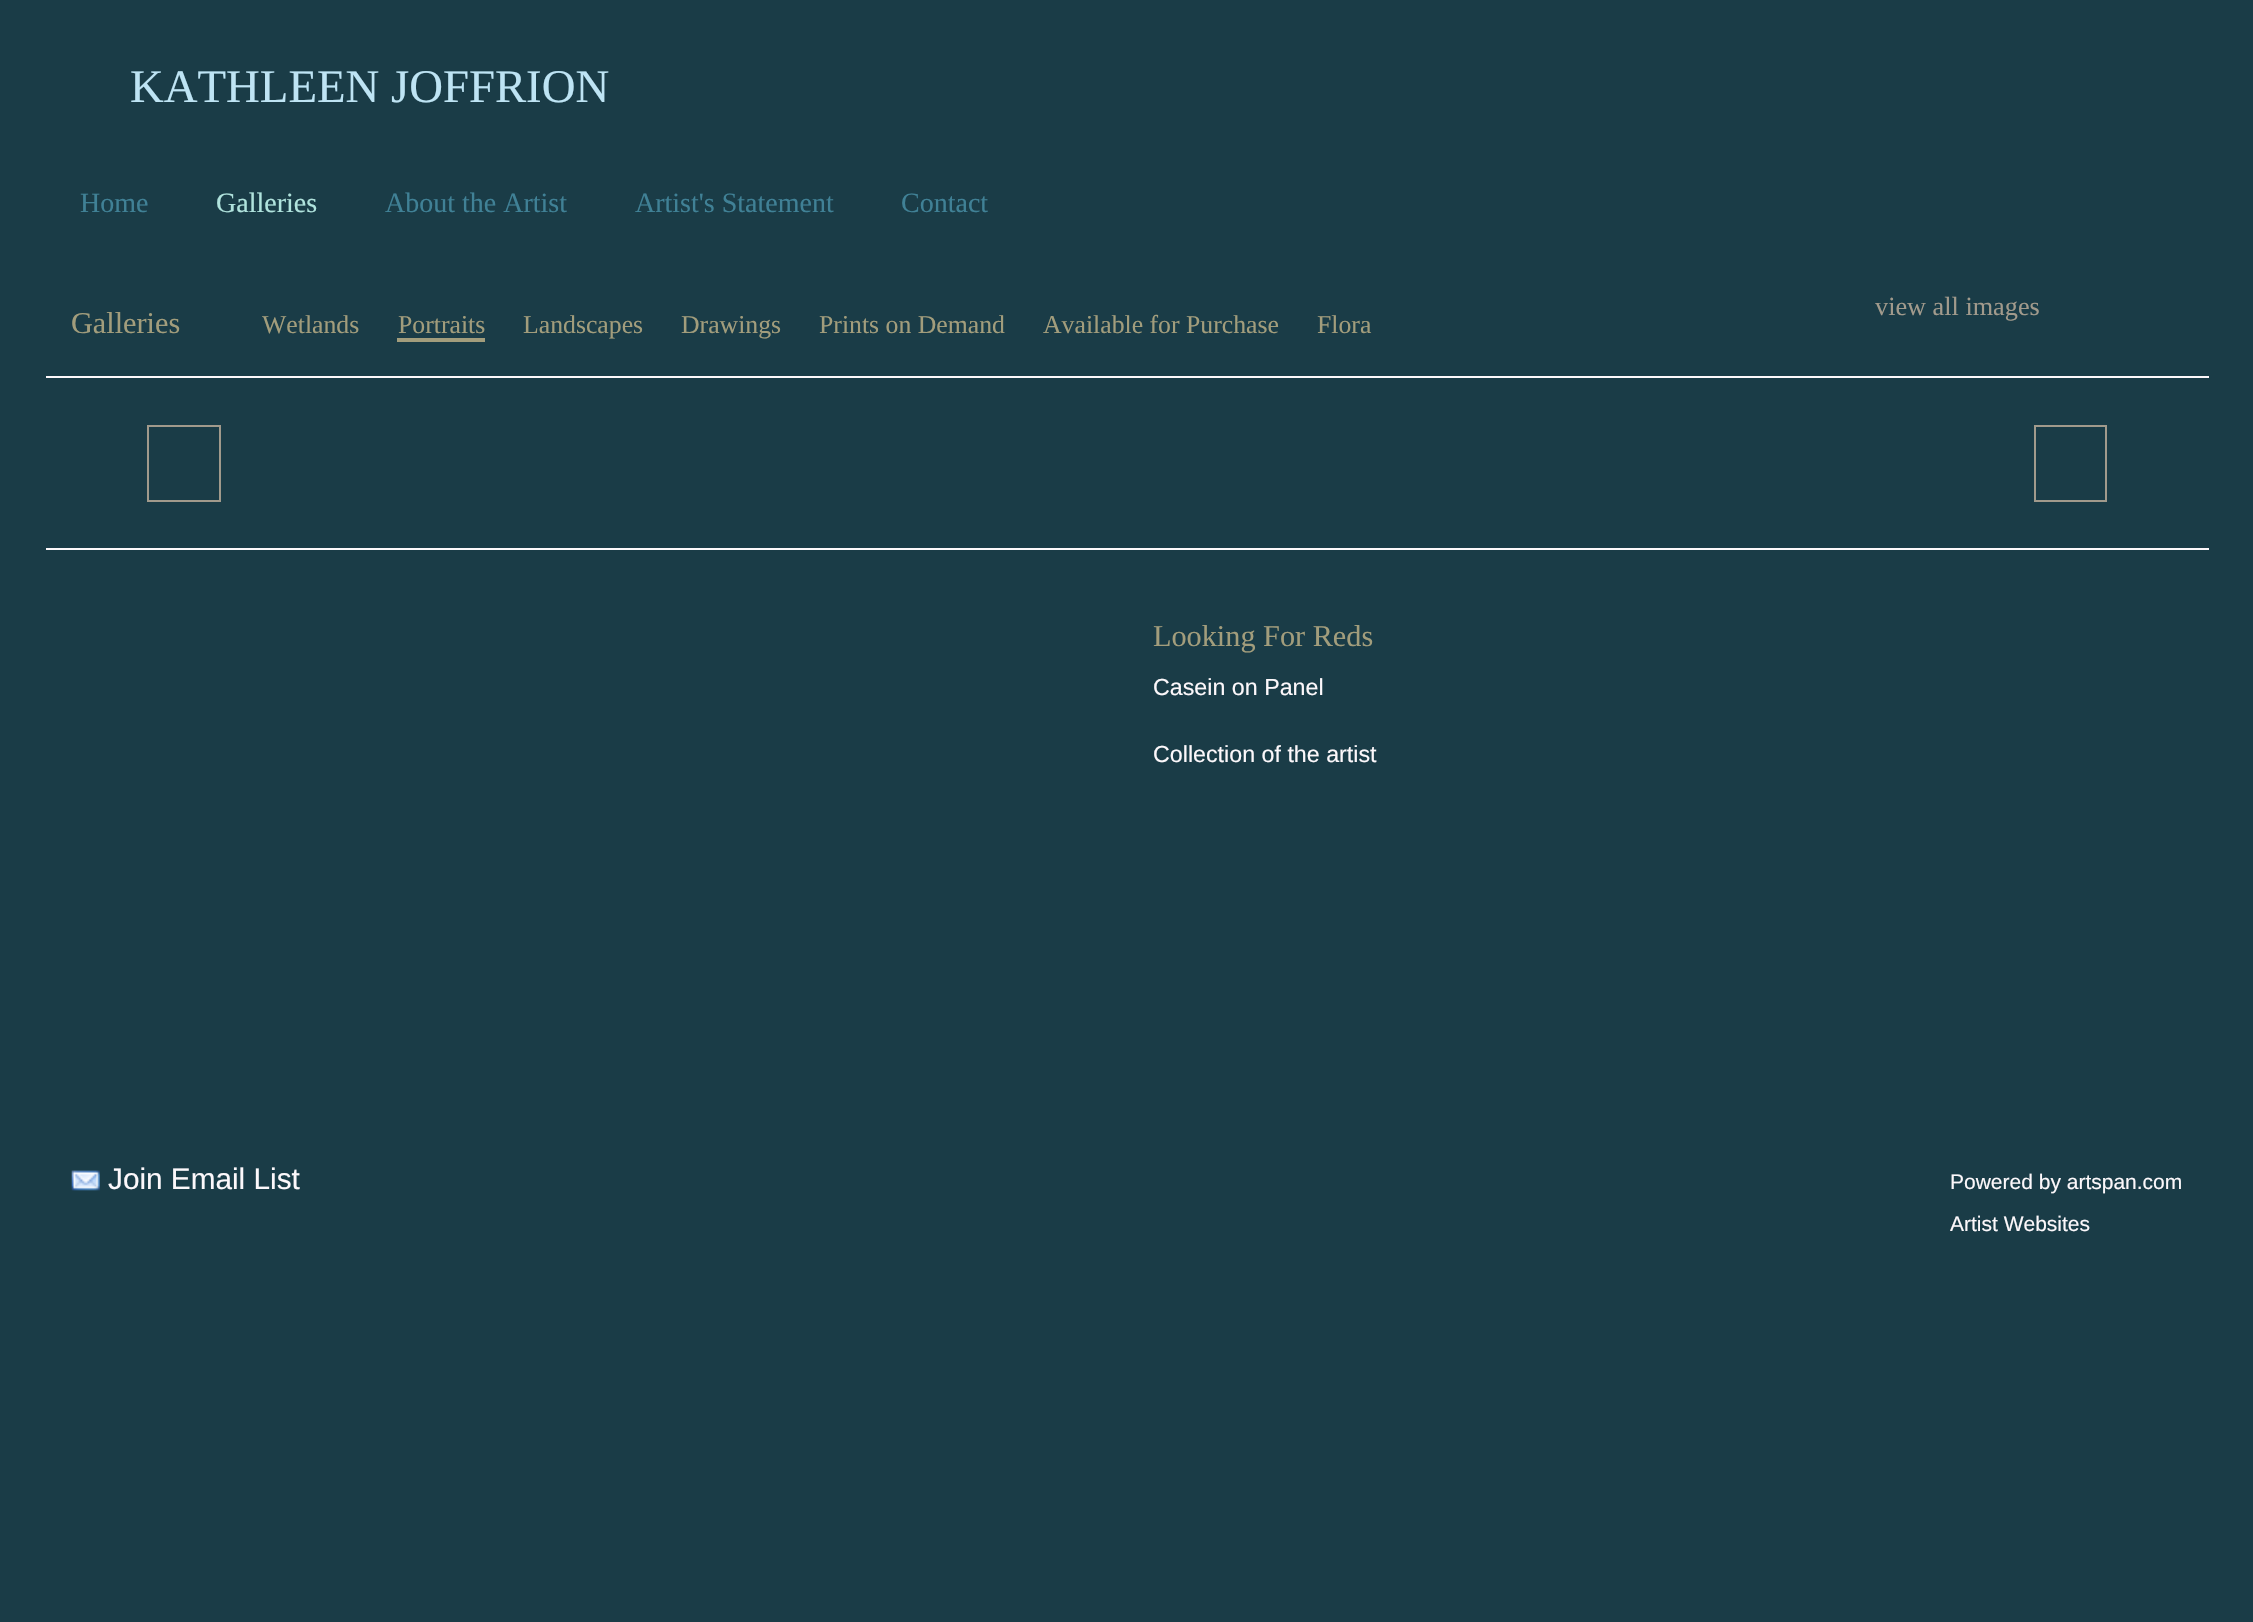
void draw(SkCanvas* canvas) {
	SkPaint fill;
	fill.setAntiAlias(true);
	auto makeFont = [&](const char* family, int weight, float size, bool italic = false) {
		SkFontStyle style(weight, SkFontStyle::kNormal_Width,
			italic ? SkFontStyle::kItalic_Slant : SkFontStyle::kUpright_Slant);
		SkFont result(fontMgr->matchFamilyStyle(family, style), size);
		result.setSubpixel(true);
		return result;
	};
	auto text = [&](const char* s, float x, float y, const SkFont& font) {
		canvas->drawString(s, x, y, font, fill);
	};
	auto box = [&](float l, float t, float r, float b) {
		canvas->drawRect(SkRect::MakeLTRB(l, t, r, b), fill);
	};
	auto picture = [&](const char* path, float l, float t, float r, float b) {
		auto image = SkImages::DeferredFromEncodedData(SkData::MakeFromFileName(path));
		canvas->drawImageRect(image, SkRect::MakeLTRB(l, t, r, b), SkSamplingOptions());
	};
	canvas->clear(0xFF1A3C47);
	fill.setColor(0xFFA29D7C);
	box(397, 338, 485, 342);
	fill.setColor(0xFFFCF8FB);
	box(46, 376, 2209, 378);
	box(46, 548, 2209, 550);
	fill.setStyle(SkPaint::kStroke_Style);
	fill.setStrokeWidth(2);
	fill.setColor(0xFFA19A8C);
	canvas->drawRect(SkRect::MakeLTRB(148, 426, 220, 501), fill);
	canvas->drawRect(SkRect::MakeLTRB(2035, 426, 2106, 501), fill);
	picture("image0.png", 71, 1170, 100, 1191);
	auto font1 = makeFont("Liberation Serif", 400, 46.75f);
	fill.setStyle(SkPaint::kFill_Style);
	fill.setColor(0xFFBEE4F4);
	text("KATHLEEN JOFFRION", 130, 102, font1);
	auto font2 = makeFont("Liberation Serif", 400, 28);
	fill.setColor(0xFF408196);
	text("Home", 80, 212, font2);
	fill.setColor(0xFFB0E3DD);
	text("Galleries", 216, 212, font2);
	fill.setColor(0xFF408196);
	text("About the Artist", 385, 212, font2);
	text("Artist's Statement", 635, 212, font2);
	text("Contact", 901, 212, font2);
	auto font3 = makeFont("Liberation Serif", 400, 26.25f);
	fill.setColor(0xFFA19A8C);
	text("view all images", 1875, 315, font3);
	auto font4 = makeFont("Liberation Serif", 400, 30.25f);
	fill.setColor(0xFFA29D7C);
	text("Galleries", 71, 333, font4);
	auto font5 = makeFont("Liberation Serif", 400, 25.75f);
	text("Wetlands", 262, 333, font5);
	text("Portraits", 398, 333, font5);
	text("Landscapes", 523, 333, font5);
	text("Drawings", 681, 333, font5);
	text("Prints on Demand", 819, 333, font5);
	text("Available for Purchase", 1043, 333, font5);
	text("Flora", 1317, 333, font5);
	text("Looking For Reds", 1153, 646, font4);
	auto font6 = makeFont("Liberation Sans", 400, 23.25f);
	fill.setColor(0xFFFCF8FB);
	text("Casein on Panel", 1153, 695, font6);
	text("Collection of the artist", 1153, 762, font6);
	auto font7 = makeFont("Liberation Sans", 400, 29.75f);
	text("Join Email List", 108, 1189, font7);
	auto font8 = makeFont("Liberation Sans", 400, 21);
	text("Powered by artspan.com", 1950, 1189, font8);
	text("Artist Websites", 1950, 1231, font8);
}
